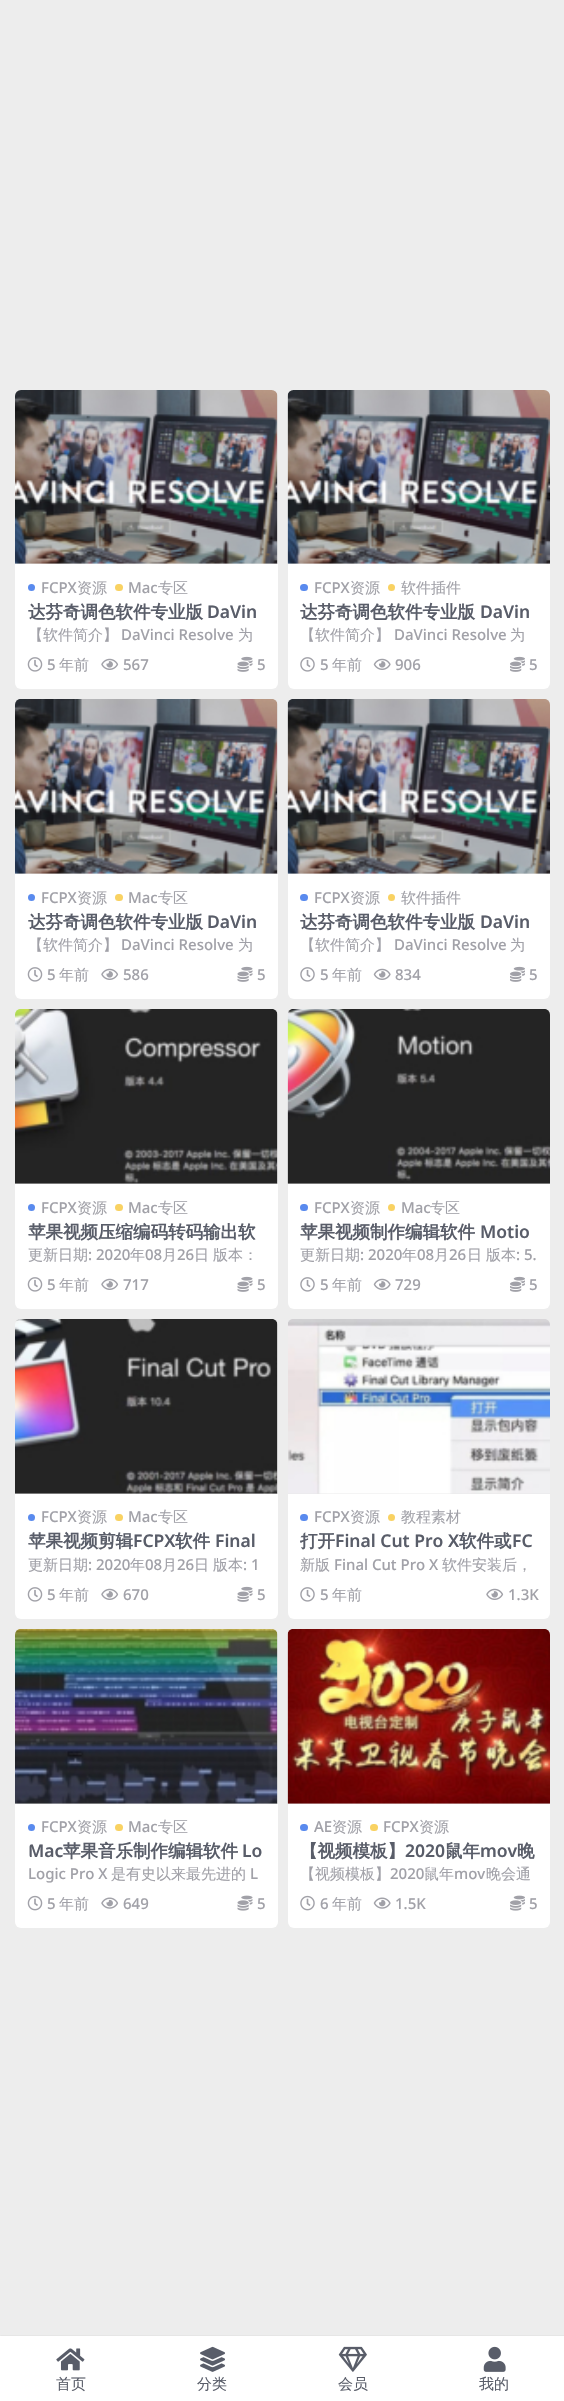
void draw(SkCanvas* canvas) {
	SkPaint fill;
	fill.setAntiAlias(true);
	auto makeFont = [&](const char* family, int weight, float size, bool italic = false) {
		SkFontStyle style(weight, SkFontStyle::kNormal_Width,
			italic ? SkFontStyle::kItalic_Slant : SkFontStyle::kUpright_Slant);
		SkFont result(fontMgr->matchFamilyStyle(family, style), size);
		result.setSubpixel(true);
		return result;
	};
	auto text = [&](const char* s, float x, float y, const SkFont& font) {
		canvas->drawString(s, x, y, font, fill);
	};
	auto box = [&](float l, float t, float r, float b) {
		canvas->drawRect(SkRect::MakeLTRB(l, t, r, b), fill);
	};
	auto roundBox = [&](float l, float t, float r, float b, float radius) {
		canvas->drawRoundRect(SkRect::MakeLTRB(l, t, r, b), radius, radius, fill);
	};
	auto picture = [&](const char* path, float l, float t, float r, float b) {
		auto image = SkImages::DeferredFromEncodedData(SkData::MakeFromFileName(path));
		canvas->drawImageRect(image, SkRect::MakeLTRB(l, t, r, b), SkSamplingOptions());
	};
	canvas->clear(0xFFEDEDED);
	fill.setColor(0xFFFFFFFF);
	roundBox(15, 390, 278, 689, 6);
	fill.setColor(0xFFE7E7E7);
	canvas->drawPath(SkPathBuilder().moveTo(21, 390).lineTo(272, 390).cubicTo(275.5f, 390, 278, 392.5f, 278, 396).lineTo(278, 564).lineTo(15, 564).lineTo(15, 396).cubicTo(15, 392.5f, 17.5f, 390, 21, 390).close().detach(), fill);
	picture("image0.png", 15, 390, 278, 564);
	fill.setColor(0xFF598AEE);
	canvas->drawCircle(31.5f, 587.5f, 3.5f, fill);
	fill.setColor(0xFFF9D262);
	roundBox(115, 584, 123, 591, 3.5f);
	picture("image1.png", 27, 657, 43, 672);
	picture("image2.png", 101, 658, 119, 670);
	picture("image3.png", 237, 656, 253, 672);
	fill.setColor(0xFFFFFFFF);
	roundBox(288, 390, 550, 689, 6);
	fill.setColor(0xFFE7E7E7);
	canvas->drawPath(SkPathBuilder().moveTo(294, 390).lineTo(544, 390).cubicTo(547.5f, 390, 550, 392.5f, 550, 396).lineTo(550, 564).lineTo(288, 564).lineTo(288, 396).cubicTo(288, 392.5f, 290.5f, 390, 294, 390).close().detach(), fill);
	picture("image4.png", 287, 390, 550, 564);
	fill.setColor(0xFF598AEE);
	roundBox(300, 584, 308, 591, 3.5f);
	fill.setColor(0xFFF9D262);
	canvas->drawCircle(391.5f, 587.5f, 3.5f, fill);
	picture("image5.png", 300, 657, 315, 672);
	picture("image6.png", 373, 658, 391, 670);
	picture("image7.png", 510, 656, 525, 672);
	fill.setColor(0xFFFFFFFF);
	roundBox(15, 699, 278, 999, 6);
	fill.setColor(0xFFE7E7E7);
	canvas->drawPath(SkPathBuilder().moveTo(21, 699).lineTo(272, 699).cubicTo(275.5f, 699, 278, 701.5f, 278, 705).lineTo(278, 874).lineTo(15, 874).lineTo(15, 705).cubicTo(15, 701.5f, 17.5f, 699, 21, 699).close().detach(), fill);
	picture("image8.png", 15, 699, 278, 874);
	fill.setColor(0xFF598AEE);
	canvas->drawCircle(31.5f, 897.5f, 3.5f, fill);
	fill.setColor(0xFFF9D262);
	roundBox(115, 894, 123, 901, 3.5f);
	picture("image1.png", 27, 967, 43, 982);
	picture("image2.png", 101, 968, 119, 980);
	picture("image3.png", 237, 966, 253, 982);
	fill.setColor(0xFFFFFFFF);
	roundBox(288, 699, 550, 999, 6);
	fill.setColor(0xFFE7E7E7);
	canvas->drawPath(SkPathBuilder().moveTo(294, 699).lineTo(544, 699).cubicTo(547.5f, 699, 550, 701.5f, 550, 705).lineTo(550, 874).lineTo(288, 874).lineTo(288, 705).cubicTo(288, 701.5f, 290.5f, 699, 294, 699).close().detach(), fill);
	picture("image9.png", 287, 699, 550, 874);
	fill.setColor(0xFF598AEE);
	roundBox(300, 894, 308, 901, 3.5f);
	fill.setColor(0xFFF9D262);
	canvas->drawCircle(391.5f, 897.5f, 3.5f, fill);
	picture("image5.png", 300, 967, 315, 982);
	picture("image6.png", 373, 968, 391, 980);
	picture("image7.png", 510, 966, 525, 982);
	fill.setColor(0xFFFFFFFF);
	roundBox(15, 1009, 278, 1309, 6);
	fill.setColor(0xFFE7E7E7);
	canvas->drawPath(SkPathBuilder().moveTo(21, 1009).lineTo(272, 1009).cubicTo(275.5f, 1009, 278, 1011.5f, 278, 1015).lineTo(278, 1184).lineTo(15, 1184).lineTo(15, 1015).cubicTo(15, 1011.5f, 17.5f, 1009, 21, 1009).close().detach(), fill);
	picture("image10.png", 15, 1009, 278, 1184);
	fill.setColor(0xFF598AEE);
	canvas->drawCircle(31.5f, 1207.5f, 3.5f, fill);
	fill.setColor(0xFFF9D262);
	roundBox(115, 1204, 123, 1211, 3.5f);
	picture("image1.png", 27, 1277, 43, 1292);
	picture("image2.png", 101, 1278, 119, 1290);
	picture("image3.png", 237, 1276, 253, 1292);
	fill.setColor(0xFFFFFFFF);
	roundBox(288, 1009, 550, 1309, 6);
	fill.setColor(0xFFE7E7E7);
	canvas->drawPath(SkPathBuilder().moveTo(294, 1009).lineTo(544, 1009).cubicTo(547.5f, 1009, 550, 1011.5f, 550, 1015).lineTo(550, 1184).lineTo(288, 1184).lineTo(288, 1015).cubicTo(288, 1011.5f, 290.5f, 1009, 294, 1009).close().detach(), fill);
	picture("image11.png", 287, 1009, 550, 1184);
	fill.setColor(0xFF598AEE);
	roundBox(300, 1204, 308, 1211, 3.5f);
	fill.setColor(0xFFF9D262);
	canvas->drawCircle(391.5f, 1207.5f, 3.5f, fill);
	picture("image5.png", 300, 1277, 315, 1292);
	picture("image6.png", 373, 1278, 391, 1290);
	picture("image7.png", 510, 1276, 525, 1292);
	fill.setColor(0xFFFFFFFF);
	roundBox(15, 1319, 278, 1619, 6);
	fill.setColor(0xFFE7E7E7);
	canvas->drawPath(SkPathBuilder().moveTo(21, 1319).lineTo(272, 1319).cubicTo(275.5f, 1319, 278, 1321.5f, 278, 1325).lineTo(278, 1494).lineTo(15, 1494).lineTo(15, 1325).cubicTo(15, 1321.5f, 17.5f, 1319, 21, 1319).close().detach(), fill);
	picture("image12.png", 15, 1319, 278, 1494);
	fill.setColor(0xFF598AEE);
	canvas->drawCircle(31.5f, 1517.5f, 3.5f, fill);
	fill.setColor(0xFFF9D262);
	roundBox(115, 1514, 123, 1521, 3.5f);
	picture("image1.png", 27, 1587, 43, 1602);
	picture("image2.png", 101, 1588, 119, 1600);
	picture("image3.png", 237, 1586, 253, 1602);
	fill.setColor(0xFFFFFFFF);
	roundBox(288, 1319, 550, 1619, 6);
	fill.setColor(0xFFE7E7E7);
	canvas->drawPath(SkPathBuilder().moveTo(294, 1319).lineTo(544, 1319).cubicTo(547.5f, 1319, 550, 1321.5f, 550, 1325).lineTo(550, 1494).lineTo(288, 1494).lineTo(288, 1325).cubicTo(288, 1321.5f, 290.5f, 1319, 294, 1319).close().detach(), fill);
	picture("image13.png", 288, 1319, 550, 1494);
	fill.setColor(0xFF598AEE);
	roundBox(300, 1514, 308, 1521, 3.5f);
	fill.setColor(0xFFF9D262);
	canvas->drawCircle(391.5f, 1517.5f, 3.5f, fill);
	picture("image5.png", 300, 1587, 315, 1602);
	picture("image2.png", 486, 1588, 504, 1600);
	fill.setColor(0xFFFFFFFF);
	roundBox(15, 1629, 278, 1928, 6);
	fill.setColor(0xFFE7E7E7);
	canvas->drawPath(SkPathBuilder().moveTo(21, 1629).lineTo(272, 1629).cubicTo(275.5f, 1629, 278, 1631.5f, 278, 1635).lineTo(278, 1804).lineTo(15, 1804).lineTo(15, 1635).cubicTo(15, 1631.5f, 17.5f, 1629, 21, 1629).close().detach(), fill);
	picture("image14.png", 15, 1629, 278, 1804);
	fill.setColor(0xFF598AEE);
	canvas->drawCircle(31.5f, 1827.5f, 3.5f, fill);
	fill.setColor(0xFFF9D262);
	roundBox(115, 1824, 123, 1831, 3.5f);
	picture("image15.png", 27, 1895, 43, 1911);
	picture("image16.png", 101, 1897, 119, 1909);
	picture("image17.png", 237, 1895, 253, 1911);
	fill.setColor(0xFFFFFFFF);
	roundBox(288, 1629, 550, 1928, 6);
	fill.setColor(0xFFE7E7E7);
	canvas->drawPath(SkPathBuilder().moveTo(294, 1629).lineTo(544, 1629).cubicTo(547.5f, 1629, 550, 1631.5f, 550, 1635).lineTo(550, 1804).lineTo(288, 1804).lineTo(288, 1635).cubicTo(288, 1631.5f, 290.5f, 1629, 294, 1629).close().detach(), fill);
	picture("image18.png", 287, 1629, 550, 1804);
	fill.setColor(0xFF598AEE);
	roundBox(300, 1824, 308, 1831, 3.5f);
	fill.setColor(0xFFF9D262);
	roundBox(370, 1824, 378, 1831, 3.5f);
	picture("image19.png", 300, 1895, 315, 1911);
	picture("image20.png", 373, 1897, 391, 1909);
	picture("image21.png", 510, 1895, 525, 1911);
	fill.setColor(0xFFFFFFFF);
	box(0, 2335, 564, 2401);
	fill.setColor(0xFFE6E6E6);
	roundBox(0, 2335, 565, 2336, 0.5f);
	picture("image22.png", 56, 2348, 85, 2371);
	picture("image23.png", 200, 2346, 225, 2372);
	picture("image24.png", 338, 2346, 367, 2372);
	picture("image25.png", 483, 2346, 506, 2372);
	auto font1 = makeFont("Noto Sans", 500, 15);
	fill.setColor(0xFFA1A1A8);
	text("FCPX", 41, 593, font1);
	auto font2 = makeFont("WenQuanYi Zen Hei", 500, 15);
	text("资源", 77, 593, font2);
	text("Mac", 128, 593, font1);
	text("专区", 158, 593, font2);
	canvas->save();
	canvas->clipPath(SkPathBuilder().moveTo(38, 601).lineTo(255, 601).cubicTo(260.5f, 601, 265, 605.5f, 265, 611).lineTo(265, 613).cubicTo(265, 618.5f, 260.5f, 623, 255, 623).lineTo(38, 623).cubicTo(32.5f, 623, 28, 618.5f, 28, 613).lineTo(28, 611).cubicTo(28, 605.5f, 32.5f, 601, 38, 601).close().detach(), true);
	auto font3 = makeFont("WenQuanYi Zen Hei", 700, 17.5f);
	fill.setColor(0xFF595D69);
	text("达芬奇调色软件专业版", 28, 618, font3);
	canvas->restore();
	auto font4 = makeFont("Noto Sans", 600, 17.5f);
	text("DaVin", 207, 618, font4);
	fill.setColor(0xFFA1A1A8);
	text("【软件简介】", 28, 640, font2);
	text("DaVinci Resolve", 121, 640, font1);
	text("为", 238, 640, font2);
	text("5", 47, 670, font1);
	text("年前", 59, 670, font2);
	text("567", 123, 670, font1);
	text("5", 257, 670, font1);
	text("FCPX", 314, 593, font1);
	text("资源", 350, 593, font2);
	text("软件插件", 401, 593, font2);
	canvas->save();
	canvas->clipPath(SkPathBuilder().moveTo(310, 601).lineTo(528, 601).cubicTo(533.5f, 601, 538, 605.5f, 538, 611).lineTo(538, 613).cubicTo(538, 618.5f, 533.5f, 623, 528, 623).lineTo(310, 623).cubicTo(304.5f, 623, 300, 618.5f, 300, 613).lineTo(300, 611).cubicTo(300, 605.5f, 304.5f, 601, 310, 601).close().detach(), true);
	fill.setColor(0xFF595D69);
	text("达芬奇调色软件专业版", 300, 618, font3);
	canvas->restore();
	text("DaVin", 480, 618, font4);
	fill.setColor(0xFFA1A1A8);
	text("【软件简介】", 300, 640, font2);
	text("DaVinci Resolve", 394, 640, font1);
	text("为", 510, 640, font2);
	text("5", 320, 670, font1);
	text("年前", 332, 670, font2);
	text("906", 395, 670, font1);
	text("5", 529, 670, font1);
	text("FCPX", 41, 903, font1);
	text("资源", 77, 903, font2);
	text("Mac", 128, 903, font1);
	text("专区", 158, 903, font2);
	canvas->save();
	canvas->clipPath(SkPathBuilder().moveTo(38, 911).lineTo(255, 911).cubicTo(260.5f, 911, 265, 915.5f, 265, 921).lineTo(265, 923).cubicTo(265, 928.5f, 260.5f, 933, 255, 933).lineTo(38, 933).cubicTo(32.5f, 933, 28, 928.5f, 28, 923).lineTo(28, 921).cubicTo(28, 915.5f, 32.5f, 911, 38, 911).close().detach(), true);
	fill.setColor(0xFF595D69);
	text("达芬奇调色软件专业版", 28, 928, font3);
	canvas->restore();
	text("DaVin", 207, 928, font4);
	fill.setColor(0xFFA1A1A8);
	text("【软件简介】", 28, 950, font2);
	text("DaVinci Resolve", 121, 950, font1);
	text("为", 238, 950, font2);
	text("5", 47, 980, font1);
	text("年前", 59, 980, font2);
	text("586", 123, 980, font1);
	text("5", 257, 980, font1);
	text("FCPX", 314, 903, font1);
	text("资源", 350, 903, font2);
	text("软件插件", 401, 903, font2);
	canvas->save();
	canvas->clipPath(SkPathBuilder().moveTo(310, 911).lineTo(528, 911).cubicTo(533.5f, 911, 538, 915.5f, 538, 921).lineTo(538, 923).cubicTo(538, 928.5f, 533.5f, 933, 528, 933).lineTo(310, 933).cubicTo(304.5f, 933, 300, 928.5f, 300, 923).lineTo(300, 921).cubicTo(300, 915.5f, 304.5f, 911, 310, 911).close().detach(), true);
	fill.setColor(0xFF595D69);
	text("达芬奇调色软件专业版", 300, 928, font3);
	canvas->restore();
	text("DaVin", 480, 928, font4);
	fill.setColor(0xFFA1A1A8);
	text("【软件简介】", 300, 950, font2);
	text("DaVinci Resolve", 394, 950, font1);
	text("为", 510, 950, font2);
	text("5", 320, 980, font1);
	text("年前", 332, 980, font2);
	text("834", 395, 980, font1);
	text("5", 529, 980, font1);
	text("FCPX", 41, 1213, font1);
	text("资源", 77, 1213, font2);
	text("Mac", 128, 1213, font1);
	text("专区", 158, 1213, font2);
	canvas->save();
	canvas->clipPath(SkPathBuilder().moveTo(38, 1221).lineTo(255, 1221).cubicTo(260.5f, 1221, 265, 1225.5f, 265, 1231).lineTo(265, 1233).cubicTo(265, 1238.5f, 260.5f, 1243, 255, 1243).lineTo(38, 1243).cubicTo(32.5f, 1243, 28, 1238.5f, 28, 1233).lineTo(28, 1231).cubicTo(28, 1225.5f, 32.5f, 1221, 38, 1221).close().detach(), true);
	fill.setColor(0xFF595D69);
	text("苹果视频压缩编码转码输出软", 28, 1238, font3);
	canvas->restore();
	fill.setColor(0xFFA1A1A8);
	text("更新日期", 28, 1260, font2);
	text(": 2020", 88, 1260, font1);
	text("年", 130, 1260, font2);
	text("08", 145, 1260, font1);
	text("月", 162, 1260, font2);
	text("26", 177, 1260, font1);
	text("日", 194, 1260, font2);
	text("版本：", 213, 1260, font2);
	text("5", 47, 1290, font1);
	text("年前", 59, 1290, font2);
	text("717", 123, 1290, font1);
	text("5", 257, 1290, font1);
	text("FCPX", 314, 1213, font1);
	text("资源", 350, 1213, font2);
	text("Mac", 401, 1213, font1);
	text("专区", 430, 1213, font2);
	canvas->save();
	canvas->clipPath(SkPathBuilder().moveTo(310, 1221).lineTo(528, 1221).cubicTo(533.5f, 1221, 538, 1225.5f, 538, 1231).lineTo(538, 1233).cubicTo(538, 1238.5f, 533.5f, 1243, 528, 1243).lineTo(310, 1243).cubicTo(304.5f, 1243, 300, 1238.5f, 300, 1233).lineTo(300, 1231).cubicTo(300, 1225.5f, 304.5f, 1221, 310, 1221).close().detach(), true);
	fill.setColor(0xFF595D69);
	text("苹果视频制作编辑软件", 300, 1238, font3);
	canvas->restore();
	text("Motio", 480, 1238, font4);
	fill.setColor(0xFFA1A1A8);
	text("更新日期", 300, 1260, font2);
	text(": 2020", 360, 1260, font1);
	text("年", 402, 1260, font2);
	text("08", 417, 1260, font1);
	text("月", 434, 1260, font2);
	text("26", 449, 1260, font1);
	text("日", 467, 1260, font2);
	text("版本", 486, 1260, font2);
	text(": 5.", 516, 1260, font1);
	text("5", 320, 1290, font1);
	text("年前", 332, 1290, font2);
	text("729", 395, 1290, font1);
	text("5", 529, 1290, font1);
	text("FCPX", 41, 1522, font1);
	text("资源", 77, 1522, font2);
	text("Mac", 128, 1522, font1);
	text("专区", 158, 1522, font2);
	canvas->save();
	canvas->clipPath(SkPathBuilder().moveTo(38, 1531).lineTo(255, 1531).cubicTo(260.5f, 1531, 265, 1535.5f, 265, 1541).lineTo(265, 1543).cubicTo(265, 1548.5f, 260.5f, 1553, 255, 1553).lineTo(38, 1553).cubicTo(32.5f, 1553, 28, 1548.5f, 28, 1543).lineTo(28, 1541).cubicTo(28, 1535.5f, 32.5f, 1531, 38, 1531).close().detach(), true);
	fill.setColor(0xFF595D69);
	text("苹果视频剪辑", 28, 1547, font3);
	canvas->restore();
	text("FCPX", 133, 1547, font4);
	text("软件", 175, 1547, font3);
	text("Final", 215, 1547, font4);
	fill.setColor(0xFFA1A1A8);
	text("更新日期", 28, 1570, font2);
	text(": 2020", 88, 1570, font1);
	text("年", 130, 1570, font2);
	text("08", 145, 1570, font1);
	text("月", 162, 1570, font2);
	text("26", 177, 1570, font1);
	text("日", 194, 1570, font2);
	text("版本", 213, 1570, font2);
	text(": 1", 243, 1570, font1);
	text("5", 47, 1600, font1);
	text("年前", 59, 1600, font2);
	text("670", 123, 1600, font1);
	text("5", 257, 1600, font1);
	text("FCPX", 314, 1522, font1);
	text("资源", 350, 1522, font2);
	text("教程素材", 401, 1522, font2);
	canvas->save();
	canvas->clipPath(SkPathBuilder().moveTo(310, 1531).lineTo(528, 1531).cubicTo(533.5f, 1531, 538, 1535.5f, 538, 1541).lineTo(538, 1543).cubicTo(538, 1548.5f, 533.5f, 1553, 528, 1553).lineTo(310, 1553).cubicTo(304.5f, 1553, 300, 1548.5f, 300, 1543).lineTo(300, 1541).cubicTo(300, 1535.5f, 304.5f, 1531, 310, 1531).close().detach(), true);
	fill.setColor(0xFF595D69);
	text("打开", 300, 1547, font3);
	canvas->restore();
	text("Final Cut Pro X", 335, 1547, font4);
	text("软件或", 459, 1547, font3);
	text("FC", 512, 1547, font4);
	fill.setColor(0xFFA1A1A8);
	text("新版", 300, 1570, font2);
	text("Final Cut Pro X", 334, 1570, font1);
	text("软件安装后，", 442, 1570, font2);
	text("5", 320, 1600, font1);
	text("年前", 332, 1600, font2);
	text("1.3K", 508, 1600, font1);
	text("FCPX", 41, 1832, font1);
	text("资源", 77, 1832, font2);
	text("Mac", 128, 1832, font1);
	text("专区", 158, 1832, font2);
	canvas->save();
	canvas->clipPath(SkPathBuilder().moveTo(38, 1841).lineTo(255, 1841).cubicTo(260.5f, 1841, 265, 1845.5f, 265, 1851).cubicTo(265, 1856.5f, 260.5f, 1861, 255, 1861).lineTo(38, 1861).cubicTo(32.5f, 1861, 28, 1856.5f, 28, 1851).cubicTo(28, 1845.5f, 32.5f, 1841, 38, 1841).close().detach(), true);
	fill.setColor(0xFF595D69);
	text("Mac", 28, 1857, font4);
	canvas->restore();
	text("苹果音乐制作编辑软件", 63, 1857, font3);
	text("Lo", 242, 1857, font4);
	fill.setColor(0xFFA1A1A8);
	text("Logic Pro X", 28, 1879, font1);
	text("是有史以来最先进的", 111, 1879, font2);
	text("L", 250, 1879, font1);
	text("5", 47, 1909, font1);
	text("年前", 59, 1909, font2);
	text("649", 123, 1909, font1);
	text("5", 257, 1909, font1);
	text("AE", 314, 1832, font1);
	text("资源", 332, 1832, font2);
	text("FCPX", 383, 1832, font1);
	text("资源", 419, 1832, font2);
	fill.setColor(0xFF595D69);
	text("【视频模板】", 300, 1857, font3);
	text("2020", 405, 1857, font4);
	text("鼠年", 445, 1857, font3);
	text("mov", 480, 1857, font4);
	text("晚", 517, 1857, font3);
	fill.setColor(0xFFA1A1A8);
	text("【视频模板】", 300, 1879, font2);
	text("2020", 390, 1879, font1);
	text("鼠年", 424, 1879, font2);
	text("mov", 454, 1879, font1);
	text("晚会通", 486, 1879, font2);
	text("6", 320, 1909, font1);
	text("年前", 332, 1909, font2);
	text("1.5K", 395, 1909, font1);
	text("5", 529, 1909, font1);
	fill.setColor(0xFF595D69);
	text("首页", 56, 2389, font2);
	text("分类", 197, 2389, font2);
	text("会员", 338, 2389, font2);
	text("我的", 479, 2389, font2);
}
